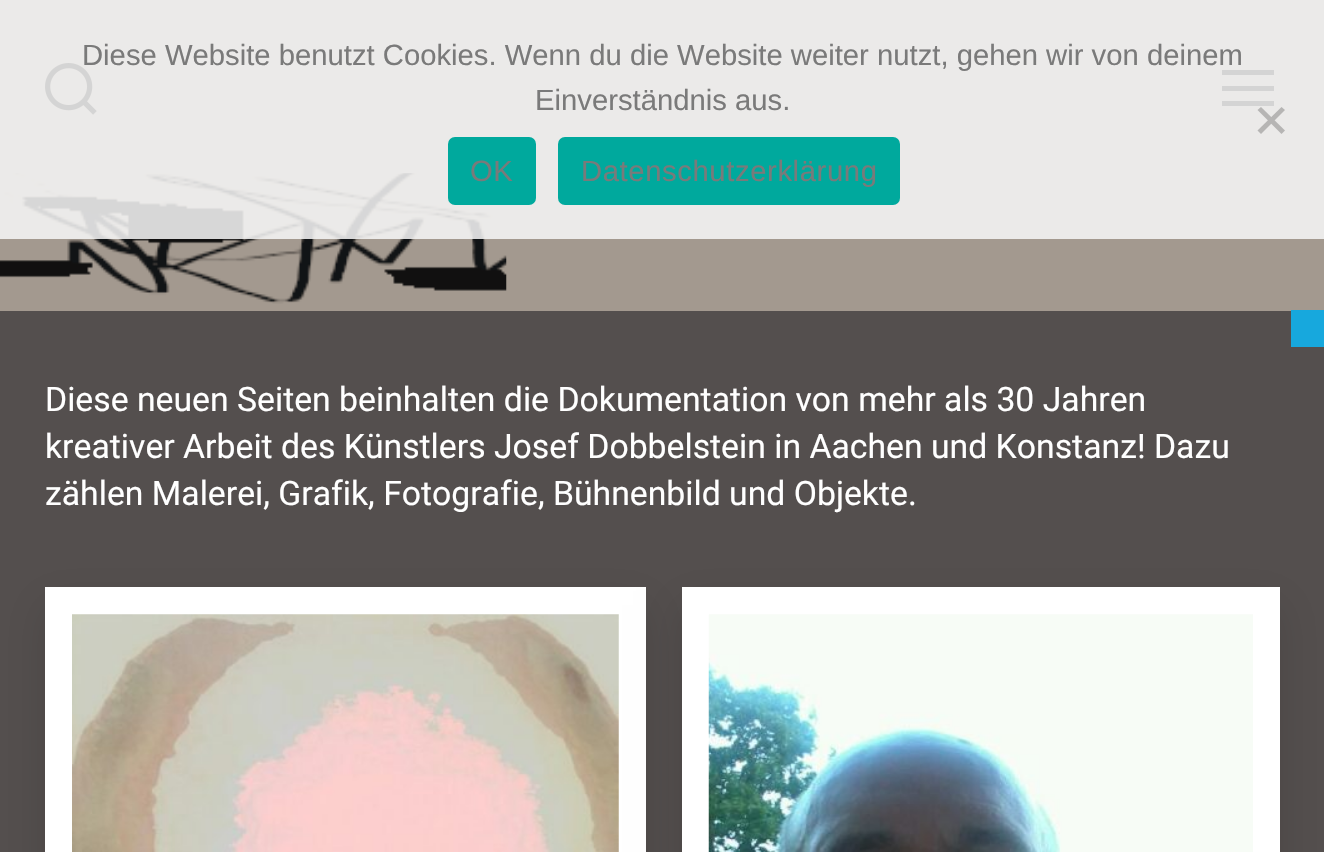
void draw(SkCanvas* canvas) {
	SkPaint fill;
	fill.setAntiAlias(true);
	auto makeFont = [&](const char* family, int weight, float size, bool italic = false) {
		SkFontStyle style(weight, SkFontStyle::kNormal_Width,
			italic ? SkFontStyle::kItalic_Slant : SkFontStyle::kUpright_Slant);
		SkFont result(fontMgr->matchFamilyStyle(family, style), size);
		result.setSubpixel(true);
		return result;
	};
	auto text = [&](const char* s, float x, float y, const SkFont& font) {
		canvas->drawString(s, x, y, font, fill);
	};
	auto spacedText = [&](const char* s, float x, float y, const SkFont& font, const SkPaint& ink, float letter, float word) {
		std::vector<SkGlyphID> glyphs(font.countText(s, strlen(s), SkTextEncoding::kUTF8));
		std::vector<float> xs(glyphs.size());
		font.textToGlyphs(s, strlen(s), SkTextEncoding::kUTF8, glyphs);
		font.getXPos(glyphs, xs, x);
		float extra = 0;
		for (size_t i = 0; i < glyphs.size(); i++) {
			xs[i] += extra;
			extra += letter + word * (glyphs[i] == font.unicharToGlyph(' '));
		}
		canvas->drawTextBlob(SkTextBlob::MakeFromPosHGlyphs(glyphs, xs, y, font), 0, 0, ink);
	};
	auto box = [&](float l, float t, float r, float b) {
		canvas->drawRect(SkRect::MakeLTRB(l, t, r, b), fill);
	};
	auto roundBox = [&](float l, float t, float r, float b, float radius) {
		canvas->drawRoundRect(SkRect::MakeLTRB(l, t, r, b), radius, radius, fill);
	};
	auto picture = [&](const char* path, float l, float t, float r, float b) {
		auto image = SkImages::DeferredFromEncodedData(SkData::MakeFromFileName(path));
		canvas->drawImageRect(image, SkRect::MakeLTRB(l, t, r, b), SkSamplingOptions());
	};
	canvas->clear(0xFF544F4E);
	fill.setColor(0xFFA3998F);
	box(0, 0, 1324, 311);
	picture("image0.png", 45, 63, 97, 115);
	fill.setColor(0xFF000000);
	box(1222, 70, 1274, 75);
	box(1222, 101, 1274, 106);
	box(1222, 86, 1274, 91);
	picture("image1.png", 0, 173, 507, 304);
	fill.setColor(0xDBF7F7F7);
	box(0, 0, 1324, 239);
	fill.setColor(0xFFB6B5B4);
	canvas->drawPath(SkPathBuilder().moveTo(1281.5f, 107).lineTo(1285, 110).lineTo(1261, 134).lineTo(1257.5f, 130.5f).close().detach(), fill);
	canvas->drawPath(SkPathBuilder().moveTo(1257.5f, 110).lineTo(1261, 107).lineTo(1285, 130.5f).lineTo(1281.5f, 134).close().detach(), fill);
	fill.setColor(0xFF00A99D);
	roundBox(448, 137, 536, 205, 7);
	roundBox(558, 137, 900, 205, 7);
	fill.setColor(0xFF17A8DD);
	box(1291, 310, 1324, 347);
	fill.setColor(0x1F000000);
	fill.setMaskFilter(SkMaskFilter::MakeBlur(kNormal_SkBlurStyle, 20));
	canvas->drawRect(SkRect::MakeLTRB(45, 605, 646, 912), fill);
	fill.setMaskFilter(nullptr);
	fill.setColor(0xFFFFFFFF);
	box(45, 587, 646, 852);
	picture("image2.png", 72, 614, 619, 852);
	fill.setColor(0x1F000000);
	fill.setMaskFilter(SkMaskFilter::MakeBlur(kNormal_SkBlurStyle, 20));
	canvas->drawRect(SkRect::MakeLTRB(682, 605, 1280, 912), fill);
	fill.setMaskFilter(nullptr);
	fill.setColor(0xFFFFFFFF);
	box(682, 587, 1280, 852);
	picture("image3.png", 708, 614, 1253, 852);
	auto font1 = makeFont("Liberation Sans", 400, 29.25f);
	fill.setColor(0xFF7A7A7A);
	text("Diese Website benutzt Cookies. Wenn du die Website weiter nutzt, gehen wir von deinem", 82, 65, font1);
	text("Einverständnis aus.", 535, 110, font1);
	spacedText("OK", 470, 181, font1, fill, 0.6f, 0);
	spacedText("Datenschutzerklärung", 581, 181, font1, fill, 0.6f, 0);
	auto font2 = makeFont("Roboto", 400, 33.75f);
	fill.setColor(0xFFFFFFFF);
	text("Diese neuen Seiten beinhalten die Dokumentation von mehr als 30 Jahren", 45, 411, font2);
	text("kreativer Arbeit des Künstlers Josef Dobbelstein in Aachen und Konstanz! Dazu", 45, 458, font2);
	text("zählen Malerei, Grafik, Fotografie, Bühnenbild und Objekte.", 45, 505, font2);
}
